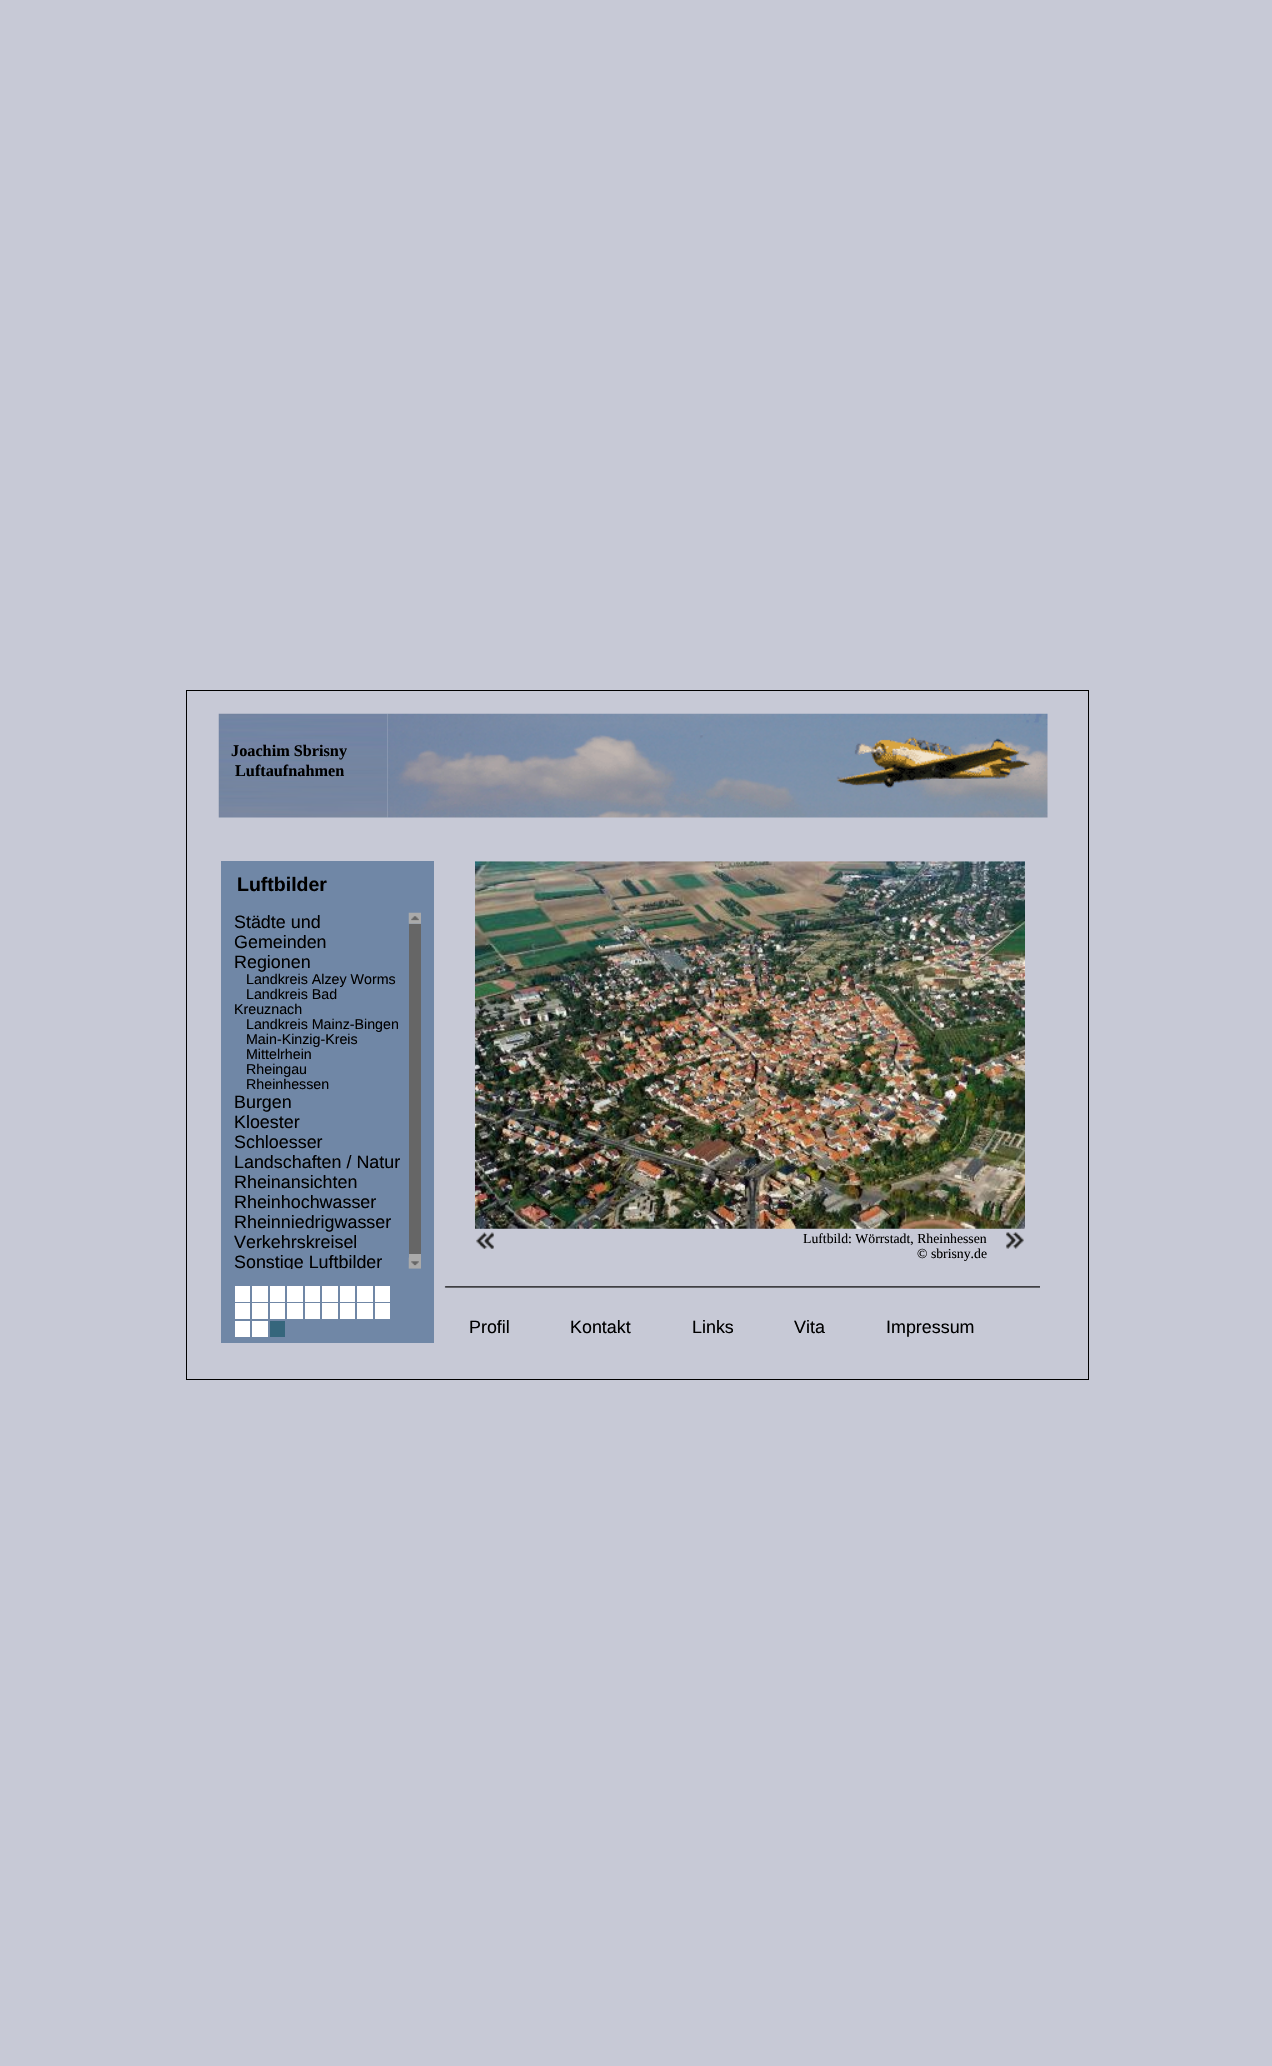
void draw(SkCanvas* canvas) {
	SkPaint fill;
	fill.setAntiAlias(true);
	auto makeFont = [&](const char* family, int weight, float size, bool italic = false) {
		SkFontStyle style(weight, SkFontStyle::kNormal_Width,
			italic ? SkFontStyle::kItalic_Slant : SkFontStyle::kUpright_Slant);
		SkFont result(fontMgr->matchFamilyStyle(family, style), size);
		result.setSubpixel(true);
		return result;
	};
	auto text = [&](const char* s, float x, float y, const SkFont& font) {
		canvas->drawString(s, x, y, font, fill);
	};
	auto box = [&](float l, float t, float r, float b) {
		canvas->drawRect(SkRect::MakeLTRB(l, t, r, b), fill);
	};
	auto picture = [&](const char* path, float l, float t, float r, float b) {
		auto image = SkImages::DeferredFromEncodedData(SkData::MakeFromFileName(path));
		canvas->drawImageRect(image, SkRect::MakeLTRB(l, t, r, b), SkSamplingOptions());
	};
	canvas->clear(0xFFC7C9D6);
	fill.setStyle(SkPaint::kStroke_Style);
	fill.setStrokeWidth(1);
	fill.setColor(0xFF000000);
	canvas->drawRect(SkRect::MakeLTRB(186.5f, 690.5f, 1088.5f, 1379.5f), fill);
	picture("image0.png", 218, 713, 388, 818);
	picture("image1.png", 387, 713, 1048, 818);
	fill.setStyle(SkPaint::kFill_Style);
	fill.setColor(0xFF7087A6);
	box(221, 861, 434, 1343);
	picture("image2.png", 408, 912, 421, 924);
	fill.setColor(0xFFAAAAAA);
	box(409, 1254, 421, 1258);
	fill.setColor(0xFF666666);
	box(409, 924, 421, 1254);
	picture("image3.png", 408, 1257, 421, 1269);
	fill.setColor(0xFFFFFFFF);
	box(235, 1286, 250, 1302);
	box(252, 1286, 268, 1302);
	box(270, 1286, 285, 1302);
	box(287, 1286, 303, 1302);
	box(305, 1286, 320, 1302);
	box(322, 1286, 338, 1302);
	box(340, 1286, 355, 1302);
	box(357, 1286, 373, 1302);
	box(375, 1286, 390, 1302);
	box(235, 1303, 250, 1319);
	box(252, 1303, 268, 1319);
	box(270, 1303, 285, 1319);
	box(287, 1303, 303, 1319);
	box(305, 1303, 320, 1319);
	box(322, 1303, 338, 1319);
	box(340, 1303, 355, 1319);
	box(357, 1303, 373, 1319);
	box(375, 1303, 390, 1319);
	box(235, 1321, 250, 1337);
	box(252, 1321, 268, 1337);
	fill.setColor(0xFF35667C);
	box(270, 1321, 285, 1337);
	picture("image4.png", 444, 1286, 1040, 1288);
	picture("image5.png", 475, 861, 1025, 1229);
	picture("image6.png", 476, 1232, 494, 1249);
	picture("image7.png", 1006, 1232, 1024, 1249);
	auto font1 = makeFont("Liberation Serif", 700, 16.25f);
	fill.setColor(0xFF000000);
	text("Joachim Sbrisny", 231, 756, font1);
	text("Luftaufnahmen", 235, 776, font1);
	auto font2 = makeFont("Liberation Sans", 700, 19.5f);
	text("Luftbilder", 237, 891, font2);
	auto font3 = makeFont("Liberation Sans", 400, 17.9f);
	text("Städte und", 234, 928, font3);
	text("Gemeinden", 234, 948, font3);
	text("Regionen", 234, 968, font3);
	auto font4 = makeFont("Liberation Sans", 400, 14.25f);
	text("Landkreis Alzey Worms", 246, 984, font4);
	text("Landkreis Bad", 246, 999, font4);
	text("Kreuznach", 234, 1014, font4);
	text("Landkreis Mainz-Bingen", 246, 1029, font4);
	text("Main-Kinzig-Kreis", 246, 1044, font4);
	text("Mittelrhein", 246, 1059, font4);
	text("Rheingau", 246, 1074, font4);
	text("Rheinhessen", 246, 1089, font4);
	text("Burgen", 234, 1108, font3);
	text("Kloester", 234, 1128, font3);
	text("Schloesser", 234, 1148, font3);
	text("Landschaften / Natur", 234, 1168, font3);
	text("Rheinansichten", 234, 1188, font3);
	text("Rheinhochwasser", 234, 1208, font3);
	text("Rheinniedrigwasser", 234, 1228, font3);
	text("Verkehrskreisel", 234, 1248, font3);
	canvas->save();
	canvas->clipRect(SkRect::MakeLTRB(234, 913, 421, 1269));
	text("Sonstige Luftbilder", 234, 1268, font3);
	canvas->restore();
	auto font5 = makeFont("Liberation Serif", 400, 13.75f);
	text("Luftbild: Wörrstadt, Rheinhessen", 803, 1243, font5);
	text("© sbrisny.de", 917, 1258, font5);
	text("Profil", 469, 1333, font3);
	text("Kontakt", 570, 1333, font3);
	text("Links", 692, 1333, font3);
	text("Vita", 794, 1333, font3);
	text("Impressum", 886, 1333, font3);
}
